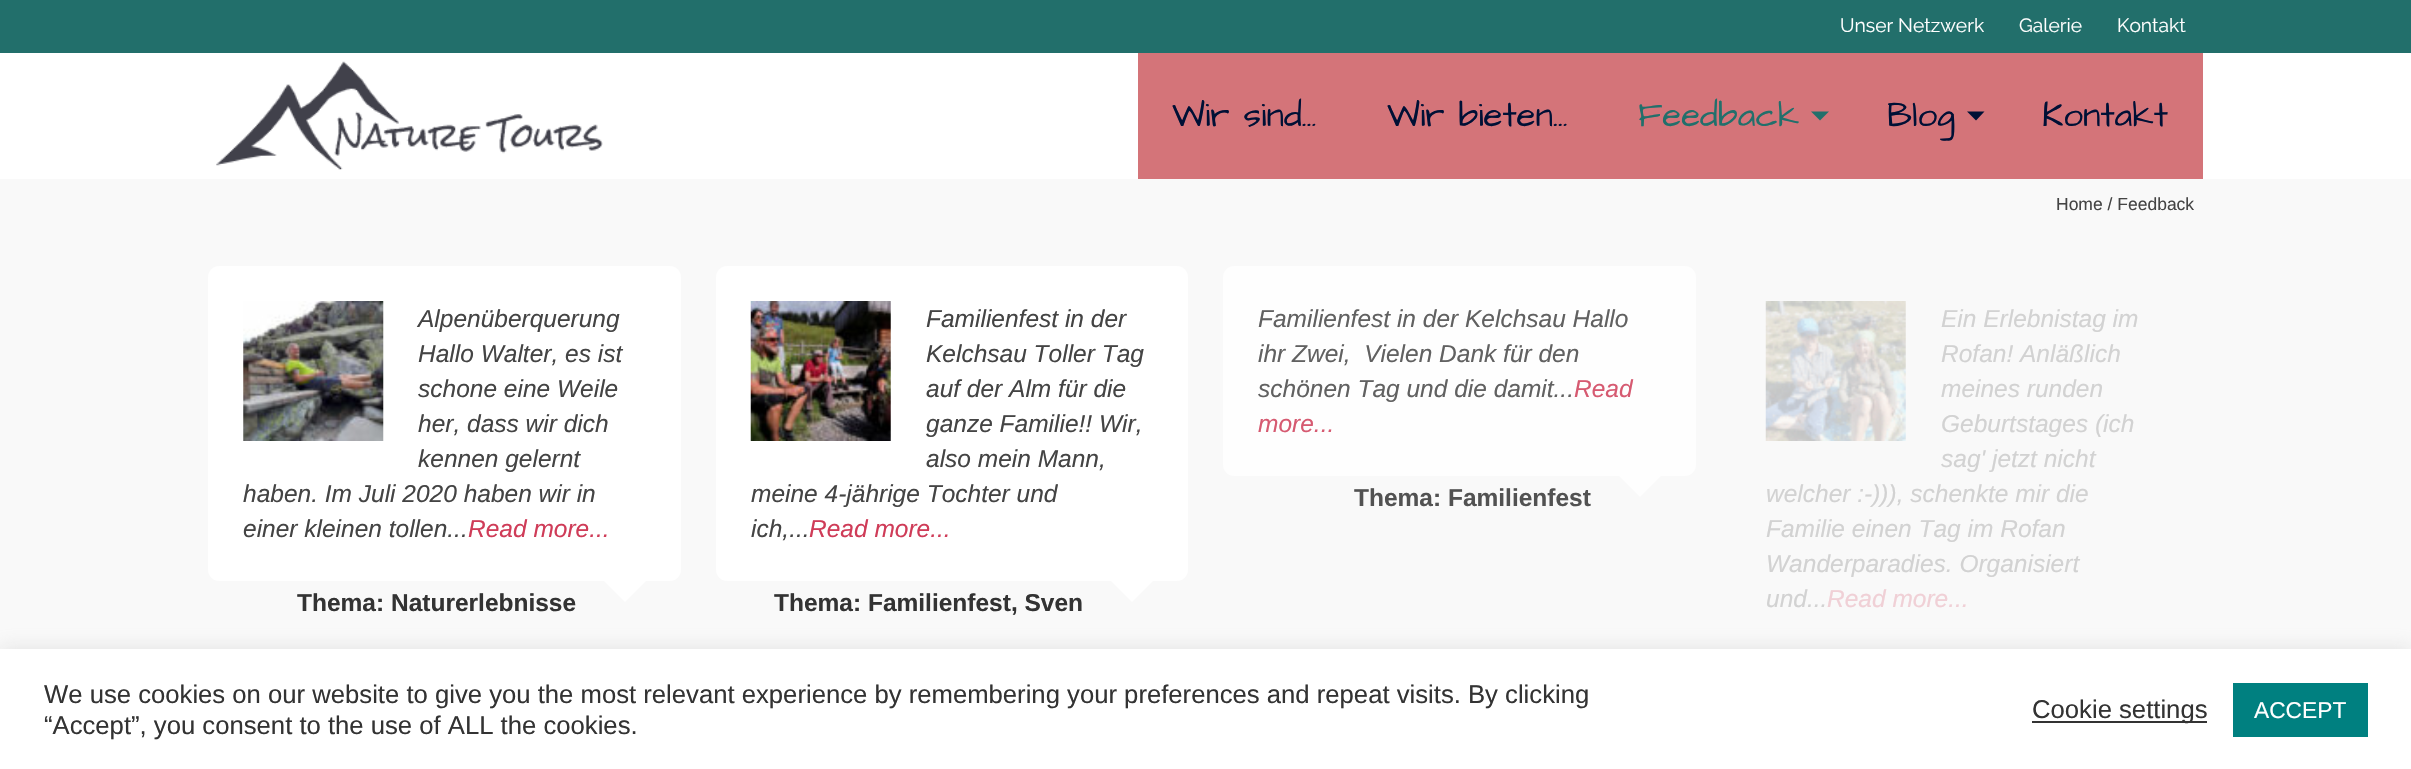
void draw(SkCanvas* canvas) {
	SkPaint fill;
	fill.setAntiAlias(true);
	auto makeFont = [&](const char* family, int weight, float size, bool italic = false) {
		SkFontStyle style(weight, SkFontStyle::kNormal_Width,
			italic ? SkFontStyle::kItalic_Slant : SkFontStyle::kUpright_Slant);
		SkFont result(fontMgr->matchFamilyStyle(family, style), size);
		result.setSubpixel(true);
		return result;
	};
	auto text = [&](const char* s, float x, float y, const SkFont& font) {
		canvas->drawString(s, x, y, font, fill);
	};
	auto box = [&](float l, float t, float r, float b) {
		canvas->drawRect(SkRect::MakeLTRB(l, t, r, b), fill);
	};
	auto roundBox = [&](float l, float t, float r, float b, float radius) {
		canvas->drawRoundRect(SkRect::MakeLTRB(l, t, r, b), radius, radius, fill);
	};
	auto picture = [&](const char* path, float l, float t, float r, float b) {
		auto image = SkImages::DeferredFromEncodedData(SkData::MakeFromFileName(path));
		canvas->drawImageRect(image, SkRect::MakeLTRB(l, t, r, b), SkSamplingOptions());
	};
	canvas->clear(0xFFFFFFFF);
	fill.setColor(0xFF226F6B);
	box(0, 0, 2411, 53);
	picture("image0.png", 216, 61, 603, 170);
	fill.setColor(0xFFD47479);
	box(1138, 53, 2203, 179);
	fill.setColor(0xFF226F6B);
	canvas->drawPath(SkPathBuilder().moveTo(1811, 111.5f).lineTo(1820, 120.5f).lineTo(1829, 111.5f).close().detach(), fill);
	fill.setColor(0xFF001035);
	canvas->drawPath(SkPathBuilder().moveTo(1967, 111.5f).lineTo(1976, 120.5f).lineTo(1984.5f, 111.5f).close().detach(), fill);
	fill.setColor(0xFFF9F9F9);
	box(0, 179, 2411, 649);
	fill.setColor(0xFFFFFFFF);
	roundBox(208, 266, 681, 581, 11);
	picture("image1.png", 243, 301, 384, 441);
	canvas->drawPath(SkPathBuilder().moveTo(604, 581).lineTo(646, 581).lineTo(625, 602).close().detach(), fill);
	roundBox(716, 266, 1188, 581, 11);
	picture("image2.png", 750, 301, 891, 441);
	canvas->drawPath(SkPathBuilder().moveTo(1111, 581).lineTo(1153, 581).lineTo(1132, 602).close().detach(), fill);
	fill.setColor(0xFFFEFEFE);
	roundBox(1223, 266, 1696, 476, 11);
	canvas->drawPath(SkPathBuilder().moveTo(1619, 476).lineTo(1661, 476).lineTo(1640, 497).close().detach(), fill);
	picture("image3.png", 1765, 301, 1906, 441);
	fill.setColor(0x4DACABAB);
	fill.setMaskFilter(SkMaskFilter::MakeBlur(kNormal_SkBlurStyle, 9));
	canvas->drawRect(SkRect::MakeLTRB(0, 648, 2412, 768), fill);
	fill.setMaskFilter(nullptr);
	fill.setColor(0xFFFFFFFF);
	box(0, 649, 2411, 769);
	fill.setColor(0xFF333333);
	box(2032, 721, 2207, 723);
	fill.setColor(0xFF008080);
	box(2233, 683, 2368, 737);
	auto font1 = makeFont("Raleway", 400, 19.25f);
	fill.setColor(0xFFFFFFFF);
	text("Unser Netzwerk", 1840, 32, font1);
	text("Galerie", 2019, 32, font1);
	text("Kontakt", 2117, 32, font1);
	auto font2 = makeFont("Architects Daughter", 400, 35);
	fill.setColor(0xFF001035);
	text("Wir sind…", 1172, 126, font2);
	text("Wir bieten…", 1387, 126, font2);
	fill.setColor(0xFF226F6B);
	text("Feedback", 1638, 126, font2);
	fill.setColor(0xFF001035);
	text("Blog", 1887, 126, font2);
	text("Kontakt", 2042, 126, font2);
	auto font3 = makeFont("Liberation Sans", 400, 17.5f);
	fill.setColor(0xFF444444);
	text("Home / Feedback", 2056, 210, font3);
	auto font4 = makeFont("Liberation Sans", 400, 24.5f, true);
	text("Alpenüberquerung", 418, 327, font4);
	text("Hallo Walter, es ist", 418, 362, font4);
	text("schone eine Weile", 418, 397, font4);
	text("her, dass wir dich", 418, 432, font4);
	text("kennen gelernt", 418, 467, font4);
	text("haben. Im Juli 2020 haben wir in", 243, 502, font4);
	text("einer kleinen tollen...", 243, 537, font4);
	fill.setColor(0xFFCF3C58);
	text("Read more...", 468, 537, font4);
	auto font5 = makeFont("Liberation Sans", 700, 24.5f);
	fill.setColor(0xFF333333);
	text("Thema: Naturerlebnisse", 297, 611, font5);
	fill.setColor(0xFF444444);
	text("Familienfest in der", 926, 327, font4);
	text("Kelchsau Toller Tag", 926, 362, font4);
	text("auf der Alm für die", 926, 397, font4);
	text("ganze Familie!! Wir,", 926, 432, font4);
	text("also mein Mann,", 926, 467, font4);
	text("meine 4-jährige Tochter und", 751, 502, font4);
	text("ich,...", 751, 537, font4);
	fill.setColor(0xFFCF3C58);
	text("Read more...", 809, 537, font4);
	fill.setColor(0xFF333333);
	text("Thema: Familienfest, Sven", 774, 611, font5);
	fill.setColor(0xFF616161);
	text("Familienfest in der Kelchsau Hallo", 1258, 327, font4);
	text("ihr Zwei,  Vielen Dank für den", 1258, 362, font4);
	text("schönen Tag und die damit...", 1258, 397, font4);
	fill.setColor(0xFFD65A71);
	text("Read", 1574, 397, font4);
	text("more...", 1258, 432, font4);
	fill.setColor(0xFF525252);
	text("Thema: Familienfest", 1354, 506, font5);
	fill.setColor(0xFFD2D2D2);
	text("Ein Erlebnistag im", 1941, 327, font4);
	text("Rofan! Anläßlich", 1941, 362, font4);
	text("meines runden", 1941, 397, font4);
	text("Geburtstages (ich", 1941, 432, font4);
	text("sag' jetzt nicht", 1941, 467, font4);
	text("welcher :-))), schenkte mir die", 1766, 502, font4);
	text("Familie einen Tag im Rofan", 1766, 537, font4);
	text("Wanderparadies. Organisiert", 1766, 572, font4);
	text("und...", 1766, 607, font4);
	fill.setColor(0xFFF0D0D6);
	text("Read more...", 1827, 607, font4);
	auto font6 = makeFont("Liberation Sans", 400, 25.67f);
	fill.setColor(0xFF333333);
	text("We use cookies on our website to give you the most relevant experience by remembering your preferences and repeat visits. By clicking", 44, 703, font6);
	text("“Accept”, you consent to the use of ALL the cookies.", 44, 734, font6);
	text("Cookie settings", 2032, 718, font6);
	auto font7 = makeFont("Liberation Sans", 400, 22.75f);
	fill.setColor(0xFFFFFFFF);
	text("ACCEPT", 2254, 718, font7);
}
